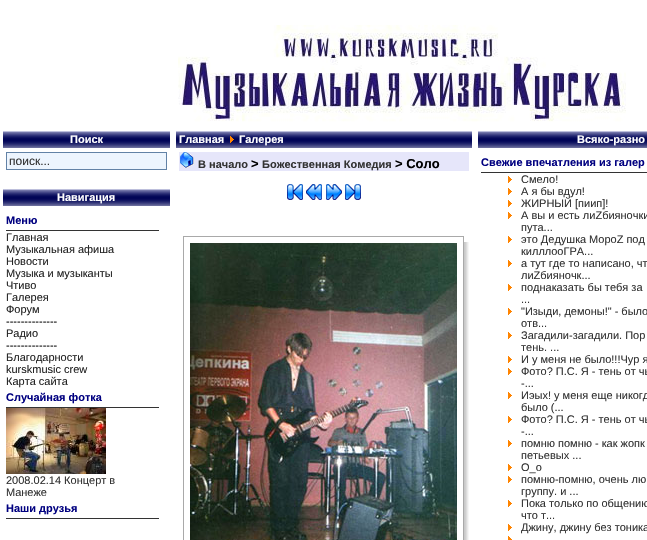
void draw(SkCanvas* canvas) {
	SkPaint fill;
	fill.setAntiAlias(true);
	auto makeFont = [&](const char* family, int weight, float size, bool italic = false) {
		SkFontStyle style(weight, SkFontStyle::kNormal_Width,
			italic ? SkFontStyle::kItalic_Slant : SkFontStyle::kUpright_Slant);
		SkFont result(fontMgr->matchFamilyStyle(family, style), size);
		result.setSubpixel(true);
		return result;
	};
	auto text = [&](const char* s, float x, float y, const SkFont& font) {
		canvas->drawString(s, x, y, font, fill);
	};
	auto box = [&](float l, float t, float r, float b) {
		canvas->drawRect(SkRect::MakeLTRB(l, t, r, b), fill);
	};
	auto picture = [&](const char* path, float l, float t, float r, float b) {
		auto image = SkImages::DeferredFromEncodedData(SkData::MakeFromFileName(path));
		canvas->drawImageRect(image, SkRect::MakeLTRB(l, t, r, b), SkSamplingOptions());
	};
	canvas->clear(0xFFFFFFFF);
	picture("image0.png", 178, 25, 626, 122);
	picture("image1.png", 3, 130, 170, 148);
	fill.setColor(0xFFEDF5FE);
	canvas->drawRect(SkRect::MakeLTRB(6.5f, 152.5f, 166.5f, 169.5f), fill);
	fill.setStyle(SkPaint::kStroke_Style);
	fill.setStrokeWidth(1);
	fill.setColor(0xFF6282A6);
	canvas->drawRect(SkRect::MakeLTRB(6.5f, 152.5f, 166.5f, 169.5f), fill);
	picture("image1.png", 3, 188, 170, 206);
	fill.setStyle(SkPaint::kFill_Style);
	fill.setColor(0xFF333333);
	box(6, 230, 159, 231);
	box(6, 407, 159, 408);
	picture("image2.png", 6, 408, 106, 474);
	box(6, 518, 159, 519);
	picture("image3.png", 176, 130, 472, 148);
	picture("image4.png", 230, 136, 234, 143);
	fill.setColor(0xFFE6E6FA);
	box(179, 152, 469, 171);
	picture("image5.png", 180, 152, 194, 168);
	picture("image6.png", 287, 184, 303, 200);
	picture("image7.png", 306, 184, 322, 200);
	picture("image8.png", 326, 184, 342, 200);
	picture("image9.png", 345, 184, 361, 200);
	picture("image10.png", 464, 242, 469, 540);
	fill.setStyle(SkPaint::kStroke_Style);
	fill.setColor(0xFFA9A9A9);
	canvas->drawRect(SkRect::MakeLTRB(183.5f, 236.5f, 463.5f, 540.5f), fill);
	picture("image11.png", 190, 243, 457, 540);
	picture("image12.png", 478, 130, 647, 148);
	fill.setStyle(SkPaint::kFill_Style);
	fill.setColor(0xFF333333);
	box(481, 172, 647, 173);
	picture("image13.png", 508, 176, 512, 183);
	picture("image13.png", 508, 188, 512, 195);
	picture("image13.png", 508, 200, 512, 207);
	picture("image13.png", 508, 212, 512, 219);
	picture("image13.png", 508, 236, 512, 243);
	picture("image13.png", 508, 260, 512, 267);
	picture("image13.png", 508, 284, 512, 291);
	picture("image13.png", 508, 308, 512, 315);
	picture("image13.png", 508, 332, 512, 339);
	picture("image13.png", 508, 356, 512, 363);
	picture("image13.png", 508, 368, 512, 375);
	picture("image13.png", 508, 392, 512, 399);
	picture("image13.png", 508, 416, 512, 423);
	picture("image13.png", 508, 440, 512, 447);
	picture("image13.png", 508, 464, 512, 471);
	picture("image13.png", 508, 476, 512, 483);
	picture("image13.png", 508, 500, 512, 507);
	picture("image13.png", 508, 524, 512, 531);
	picture("image14.png", 508, 536, 512, 540);
	auto font1 = makeFont("Liberation Sans", 700, 11);
	fill.setColor(0xFFFFFFFF);
	text("Поиск", 70, 143, font1);
	auto font2 = makeFont("Liberation Sans", 400, 12);
	fill.setColor(0xFF333333);
	text("поиск...", 9, 165, font2);
	fill.setColor(0xFFFFFFFF);
	text("Навигация", 57, 201, font1);
	fill.setColor(0xFF000080);
	text("Меню", 6, 224, font1);
	auto font3 = makeFont("Liberation Sans", 400, 11);
	fill.setColor(0xFF242424);
	text("Главная", 6, 241, font3);
	text("Музыкальная афиша", 6, 253, font3);
	text("Новости", 6, 265, font3);
	text("Музыка и музыканты", 6, 277, font3);
	text("Чтиво", 6, 289, font3);
	text("Галерея", 6, 301, font3);
	text("Форум", 6, 313, font3);
	fill.setColor(0xFF000000);
	text("--------------", 6, 325, font3);
	fill.setColor(0xFF242424);
	text("Радио", 6, 337, font3);
	fill.setColor(0xFF000000);
	text("--------------", 6, 349, font3);
	fill.setColor(0xFF242424);
	text("Благодарности", 6, 361, font3);
	text("kurskmusic crew", 6, 373, font3);
	text("Карта сайта", 6, 385, font3);
	fill.setColor(0xFF000080);
	text("Случайная фотка", 6, 401, font1);
	fill.setColor(0xFF333333);
	text("2008.02.14 Концерт в", 6, 484, font3);
	text("Манеже", 6, 496, font3);
	fill.setColor(0xFF000080);
	text("Наши друзья", 6, 512, font1);
	fill.setColor(0xFFFFFFFF);
	text("Главная", 179, 143, font1);
	text("Галерея", 239, 143, font1);
	fill.setColor(0xFF333333);
	text("В начало", 198, 168, font1);
	auto font4 = makeFont("Liberation Sans", 700, 13);
	fill.setColor(0xFF000000);
	text(">", 251, 168, font4);
	fill.setColor(0xFF333333);
	text("Божественная Комедия", 262, 168, font1);
	fill.setColor(0xFF000000);
	text("> Соло", 395, 168, font4);
	fill.setColor(0xFFFFFFFF);
	text("Всяко-разно", 577, 143, font1);
	fill.setColor(0xFF000080);
	text("Свежие впечатления из галер", 481, 166, font1);
	fill.setColor(0xFF333333);
	text("Смело!", 521, 183, font3);
	text("А я бы вдул!", 521, 195, font3);
	text("ЖИРНЫЙ [пиип]!", 521, 207, font3);
	text("А вы и есть лиZбияночки", 521, 219, font3);
	text("пута...", 521, 231, font3);
	text("это Дедушка МороZ под", 521, 243, font3);
	text("килллооГРА...", 521, 255, font3);
	text("а тут где то написано, чт", 521, 267, font3);
	text("лиZбияночк...", 521, 279, font3);
	text("поднаказать бы тебя за", 521, 291, font3);
	text("...", 521, 303, font3);
	text("\"Изыди, демоны!\" - было", 521, 315, font3);
	text("отв...", 521, 327, font3);
	text("Загадили-загадили. Пор", 521, 339, font3);
	text("тень. ...", 521, 351, font3);
	text("И у меня не было!!!Чур я", 521, 363, font3);
	text("Фото? П.С. Я - тень от чь", 521, 375, font3);
	text("-...", 521, 387, font3);
	text("Иэых! у меня еще никогд", 521, 399, font3);
	text("было (...", 521, 411, font3);
	text("Фото? П.С. Я - тень от чь", 521, 423, font3);
	text("-...", 521, 435, font3);
	text("помню помню - как жопк", 521, 447, font3);
	text("петьевых ...", 521, 459, font3);
	text("О_о", 521, 471, font3);
	text("помню-помню, очень лю", 521, 483, font3);
	text("группу. и ...", 521, 495, font3);
	text("Пока только по общению", 521, 507, font3);
	text("что т...", 521, 519, font3);
	text("Джину, джину без тоника", 521, 531, font3);
}
